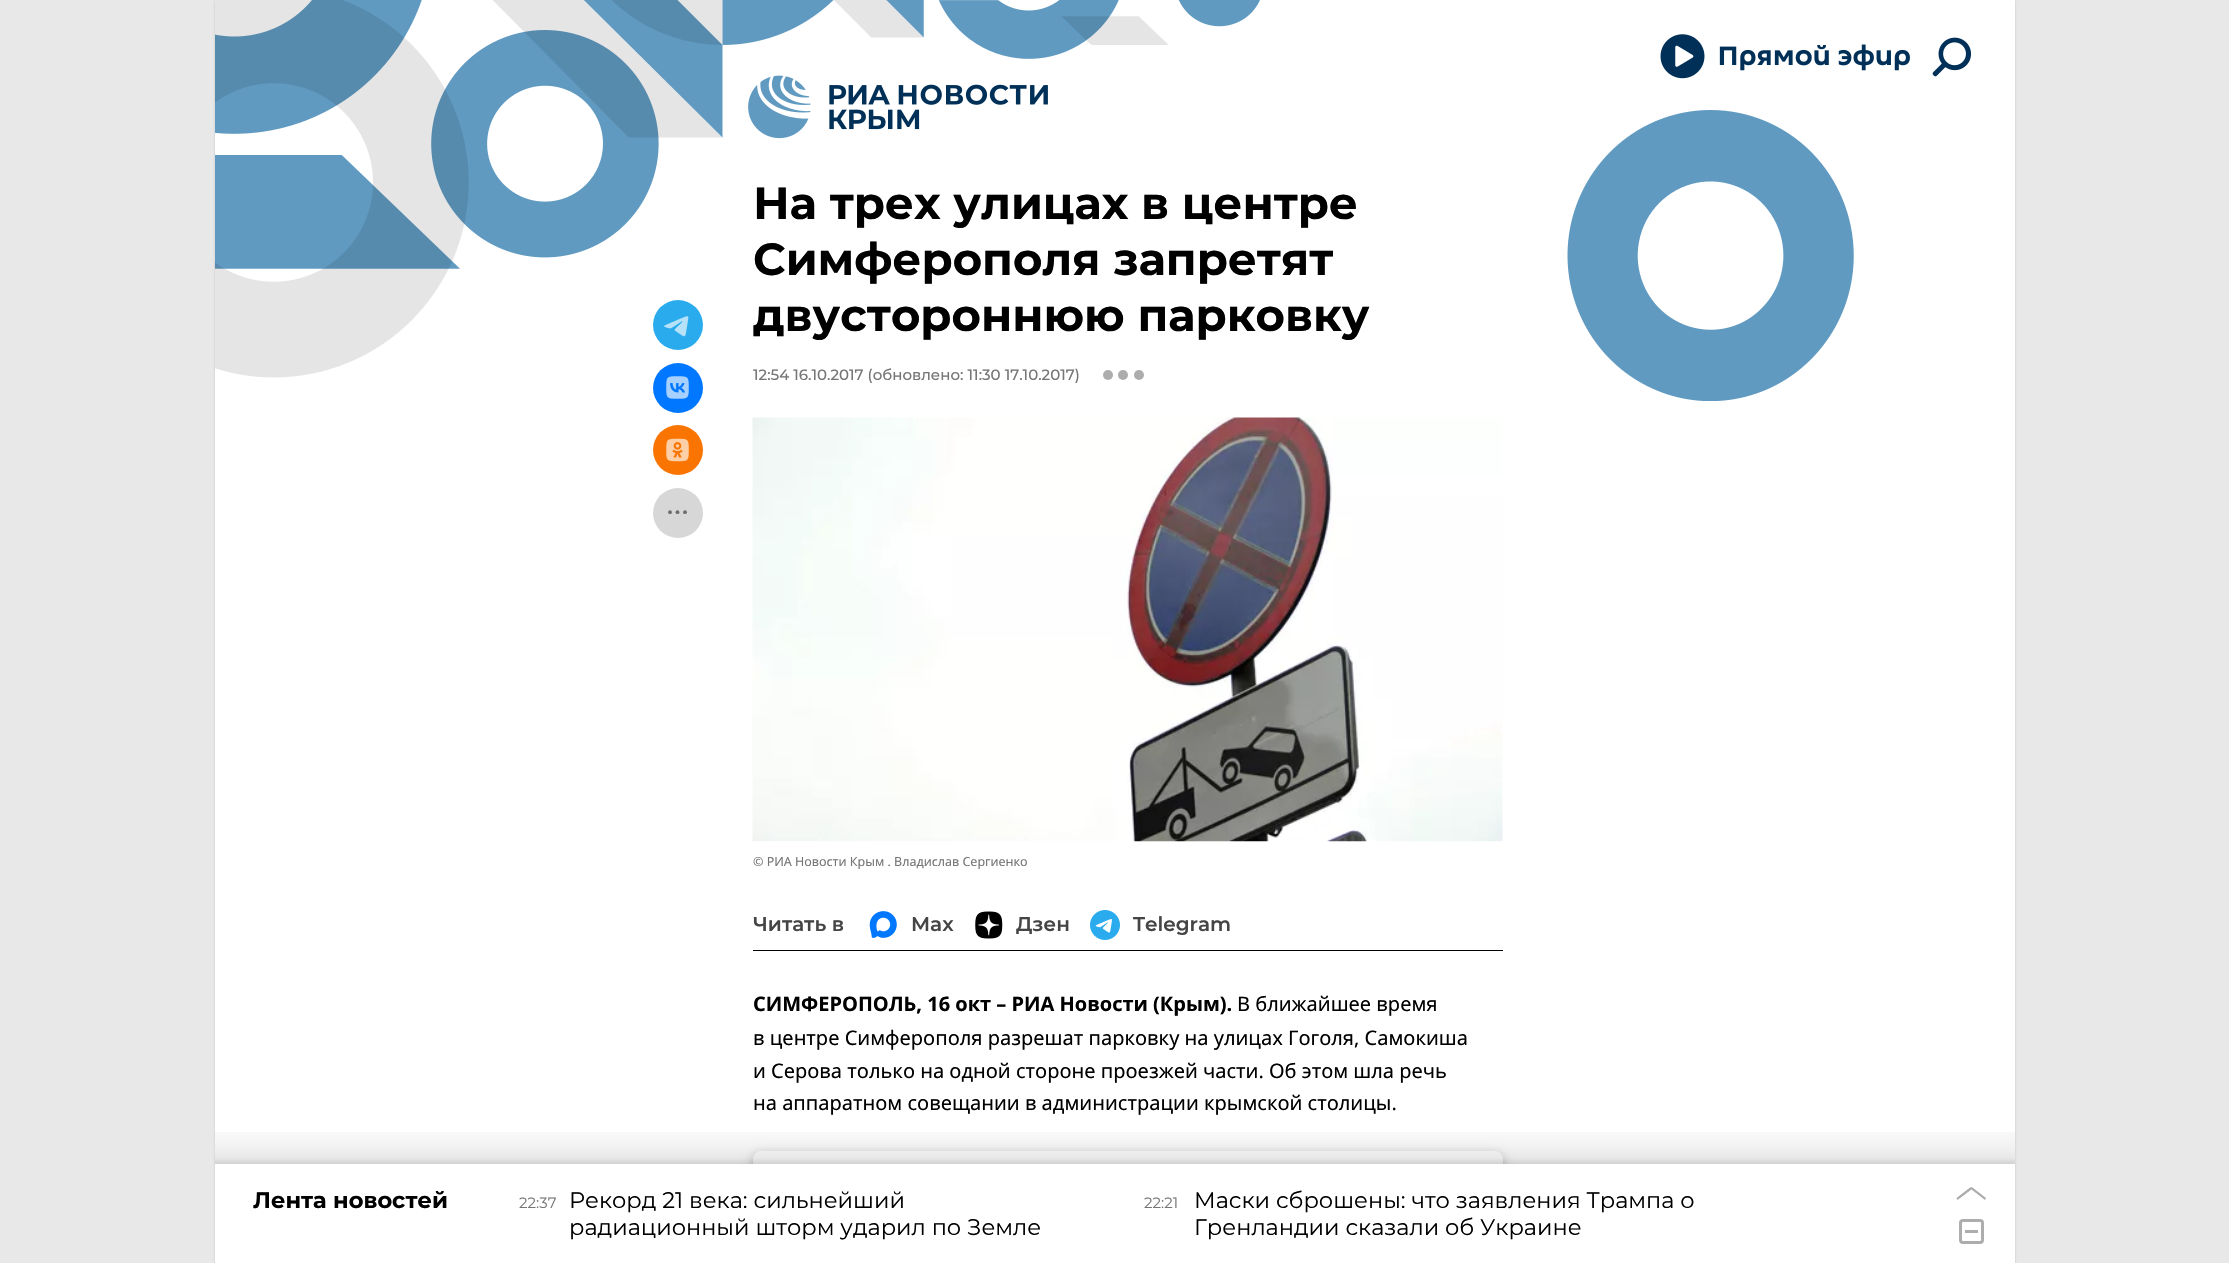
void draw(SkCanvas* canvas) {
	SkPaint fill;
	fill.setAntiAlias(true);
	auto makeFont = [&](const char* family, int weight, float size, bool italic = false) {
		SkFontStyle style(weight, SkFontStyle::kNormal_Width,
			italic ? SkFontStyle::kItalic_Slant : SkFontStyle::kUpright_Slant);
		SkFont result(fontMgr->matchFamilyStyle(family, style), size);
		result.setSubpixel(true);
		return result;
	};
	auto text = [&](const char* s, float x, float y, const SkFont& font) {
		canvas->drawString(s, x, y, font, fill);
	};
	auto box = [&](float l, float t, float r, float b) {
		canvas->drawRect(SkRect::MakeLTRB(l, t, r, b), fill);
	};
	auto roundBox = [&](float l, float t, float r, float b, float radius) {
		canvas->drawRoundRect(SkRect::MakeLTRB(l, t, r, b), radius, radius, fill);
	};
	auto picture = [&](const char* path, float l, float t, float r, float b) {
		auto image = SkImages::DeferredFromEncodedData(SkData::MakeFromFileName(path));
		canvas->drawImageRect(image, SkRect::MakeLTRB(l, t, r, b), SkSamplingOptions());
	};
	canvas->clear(0xFFE8E8E8);
	fill.setColor(0x26000000);
	fill.setMaskFilter(SkMaskFilter::MakeBlur(kNormal_SkBlurStyle, 1));
	canvas->drawRect(SkRect::MakeLTRB(215, 1, 2015, 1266), fill);
	fill.setMaskFilter(nullptr);
	fill.setColor(0xFFFFFFFF);
	box(215, 0, 2015, 1164);
	picture("image0.png", 215, 0, 1854, 401);
	picture("image1.png", 1660, 34, 1705, 79);
	picture("image2.png", 1719, 44, 1910, 71);
	picture("image3.png", 1932, 37, 1971, 77);
	picture("image4.png", 748, 75, 1048, 139);
	fill.setColor(0xFF2AABEE);
	canvas->drawCircle(678, 325, 25, fill);
	picture("image5.png", 664, 316, 689, 337);
	fill.setColor(0xFF0077FF);
	canvas->drawCircle(678, 388, 25, fill);
	picture("image6.png", 666, 376, 689, 399);
	fill.setColor(0xFFF97400);
	canvas->drawCircle(678, 450, 25, fill);
	picture("image7.png", 666, 438, 689, 462);
	fill.setColor(0xFFD7D7D7);
	canvas->drawCircle(678, 513, 25, fill);
	fill.setColor(0xFF6C6C6C);
	canvas->drawCircle(677.5f, 512.2f, 1.9f, fill);
	canvas->drawCircle(685, 512.2f, 1.9f, fill);
	canvas->drawCircle(670, 512.2f, 1.9f, fill);
	fill.setColor(0xFFADADAD);
	canvas->drawCircle(1108, 375, 5, fill);
	canvas->drawCircle(1123, 375, 5, fill);
	canvas->drawCircle(1139, 375, 5, fill);
	picture("image8.png", 752, 417, 1503, 842);
	fill.setColor(0xFF000000);
	box(753, 950, 1503, 951);
	picture("image9.png", 869, 911, 897, 938);
	picture("image10.png", 975, 911, 1003, 939);
	picture("image11.png", 1090, 910, 1120, 940);
	fill.setColor(0x40000000);
	fill.setMaskFilter(SkMaskFilter::MakeBlur(kNormal_SkBlurStyle, 5.5f));
	canvas->drawRoundRect(SkRect::MakeLTRB(753, 1154, 1503, 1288), 8, 8, fill);
	fill.setMaskFilter(nullptr);
	fill.setColor(0xFFFFFFFF);
	roundBox(753, 1151, 1503, 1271, 8);
	box(215, 1164, 2015, 1263);
	{
		const SkColor colors[] = {0x00000000, 0x0D000000, 0x17000000, 0x2E000000};
		const float stops[] = {0, 0.61f, 0.86f, 1};
		const SkPoint ends[] = {{1115, 1120}, {1115, 1164}};
		fill.setShader(SkGradientShader::MakeLinear(ends, colors, stops, 4, SkTileMode::kClamp));
		fill.setAlpha(255);
	}
	box(215, 1132, 2015, 1164);
	fill.setShader(nullptr);
	fill.setColor(0xFFADADAD);
	canvas->drawPath(SkPathBuilder().moveTo(1985, 1200).lineTo(1971.5f, 1189.5f).lineTo(1957.5f, 1200).lineTo(1956.5f, 1198).lineTo(1970, 1187.5f).cubicTo(1970.5f, 1187, 1972, 1187, 1972.5f, 1187.5f).lineTo(1986, 1198).close().detach(), fill);
	fill.setStyle(SkPaint::kStroke_Style);
	fill.setStrokeWidth(3);
	canvas->drawRoundRect(SkRect::MakeLTRB(1960.5f, 1220.5f, 1982.5f, 1242.5f), 2.5f, 2.5f, fill);
	fill.setStyle(SkPaint::kFill_Style);
	box(1965, 1230, 1978, 1233);
	auto font1 = makeFont("Montserrat", 700, 45);
	fill.setColor(0xFF000000);
	text("На трех улицах в центре", 753, 219, font1);
	text("Симферополя запретят", 753, 275, font1);
	text("двустороннюю парковку", 753, 331, font1);
	auto font2 = makeFont("Montserrat", 500, 15);
	fill.setColor(0xFF767676);
	text("12:54 16.10.2017 (обновлено: 11:30 17.10.2017)", 753, 380, font2);
	auto font3 = makeFont("Noto Sans", 400, 12.5f);
	text("© РИА Новости Крым . Владислав Сергиенко", 753, 866, font3);
	auto font4 = makeFont("Montserrat", 600, 20);
	fill.setColor(0xFF454545);
	text("Читать в", 753, 931, font4);
	text("Max", 911, 931, font4);
	text("Дзен", 1016, 931, font4);
	text("Telegram", 1133, 931, font4);
	auto font5 = makeFont("Noto Sans", 700, 20);
	fill.setColor(0xFF000000);
	text("СИМФЕРОПОЛЬ, 16 окт – РИА Новости (Крым).", 753, 1011, font5);
	auto font6 = makeFont("Noto Sans", 400, 20);
	text("В ближайшее время", 1237, 1011, font6);
	text("в центре Симферополя разрешат парковку на улицах Гоголя, Самокиша", 753, 1045, font6);
	text("и Серова только на одной стороне проезжей части. Об этом шла речь", 753, 1078, font6);
	text("на аппаратном совещании в администрации крымской столицы.", 753, 1110, font6);
	auto font7 = makeFont("Montserrat", 700, 22.5f);
	text("Лента новостей", 253, 1208, font7);
	auto font8 = makeFont("Montserrat", 400, 15);
	fill.setColor(0xFF767676);
	text("22:37", 519, 1208, font8);
	auto font9 = makeFont("Montserrat", 400, 22.5f);
	fill.setColor(0xFF000000);
	text("Рекорд 21 века: сильнейший", 569, 1208, font9);
	text("радиационный шторм ударил по Земле", 569, 1235, font9);
	fill.setColor(0xFF767676);
	text("22:21", 1144, 1208, font8);
	fill.setColor(0xFF000000);
	text("Маски сброшены: что заявления Трампа о", 1194, 1208, font9);
	text("Гренландии сказали об Украине", 1194, 1235, font9);
}
